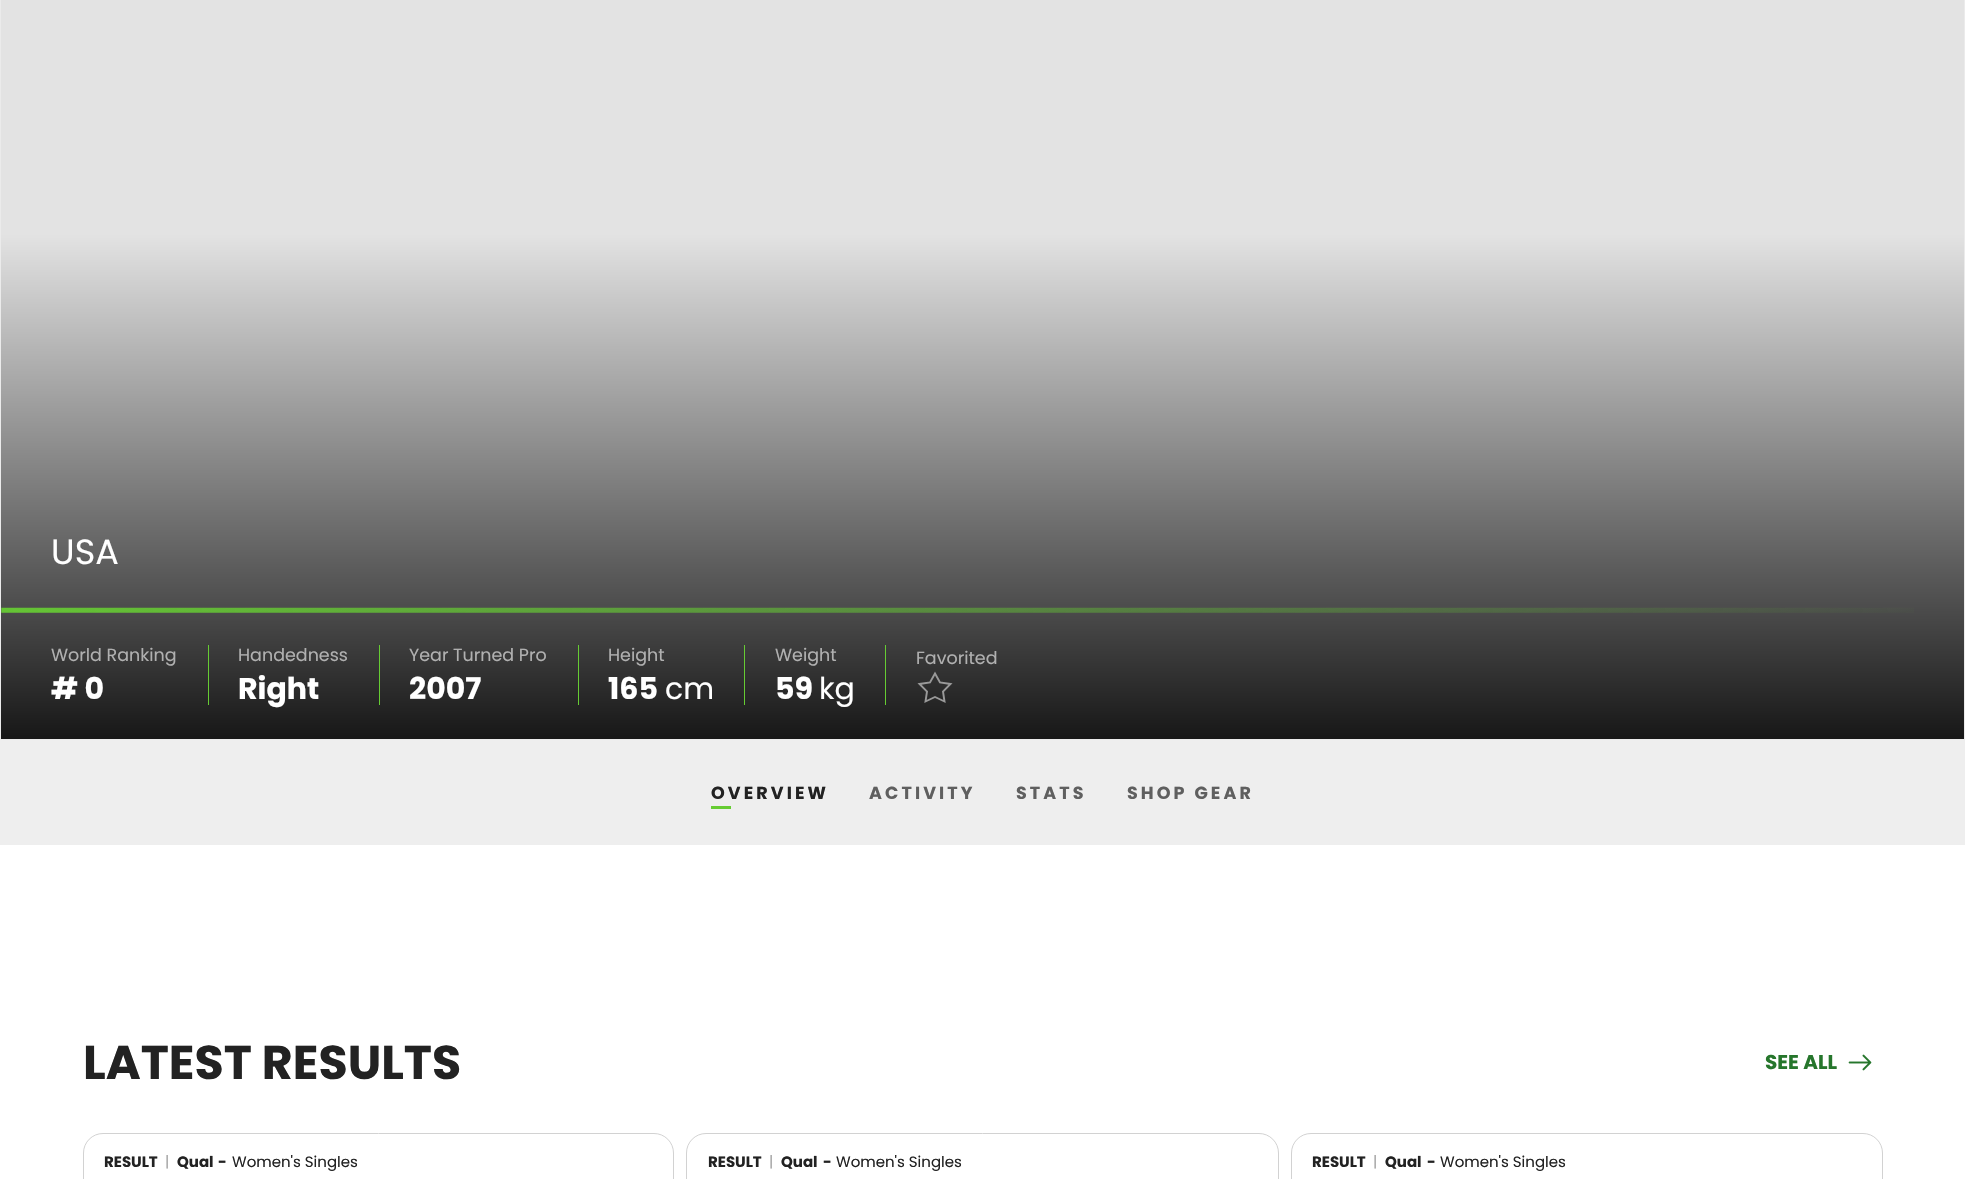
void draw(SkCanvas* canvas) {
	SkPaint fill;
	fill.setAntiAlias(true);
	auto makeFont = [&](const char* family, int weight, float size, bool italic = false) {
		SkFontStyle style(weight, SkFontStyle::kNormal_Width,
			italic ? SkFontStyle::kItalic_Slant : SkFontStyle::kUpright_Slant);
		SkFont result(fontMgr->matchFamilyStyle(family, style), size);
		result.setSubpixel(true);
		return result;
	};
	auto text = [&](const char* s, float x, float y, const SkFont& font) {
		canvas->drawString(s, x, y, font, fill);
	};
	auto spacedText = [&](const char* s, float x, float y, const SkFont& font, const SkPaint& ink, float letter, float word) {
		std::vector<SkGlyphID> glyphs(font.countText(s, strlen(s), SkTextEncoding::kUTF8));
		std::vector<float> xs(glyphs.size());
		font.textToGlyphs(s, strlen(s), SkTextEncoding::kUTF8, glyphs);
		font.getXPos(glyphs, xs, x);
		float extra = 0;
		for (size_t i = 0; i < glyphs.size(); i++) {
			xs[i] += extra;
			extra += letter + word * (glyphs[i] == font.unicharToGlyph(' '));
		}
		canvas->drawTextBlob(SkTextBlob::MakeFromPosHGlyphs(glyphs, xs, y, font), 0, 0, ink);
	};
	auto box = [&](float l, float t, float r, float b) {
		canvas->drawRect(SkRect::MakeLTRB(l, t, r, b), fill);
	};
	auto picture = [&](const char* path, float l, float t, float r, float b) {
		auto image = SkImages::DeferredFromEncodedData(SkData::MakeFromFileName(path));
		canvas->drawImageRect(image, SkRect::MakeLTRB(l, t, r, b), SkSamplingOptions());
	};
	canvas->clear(0xFFFFFFFF);
	fill.setStyle(SkPaint::kStroke_Style);
	fill.setStrokeWidth(1);
	fill.setColor(0xFFEBEBEB);
	canvas->drawRect(SkRect::MakeLTRB(0.5f, -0.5f, 1964.5f, 739.5f), fill);
	fill.setStyle(SkPaint::kFill_Style);
	{
		const SkColor colors[] = {0xFFE3E3E3, 0xFFE3E3E3, 0xFF171717};
		const float stops[] = {0, 0.4f, 1};
		const SkPoint ends[] = {{983, -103}, {983, 739}};
		fill.setShader(SkGradientShader::MakeLinear(ends, colors, stops, 3, SkTileMode::kClamp));
		fill.setAlpha(255);
	}
	box(1, 0, 1964, 739);
	picture("image0.png", 1, 607, 1914, 613);
	fill.setShader(nullptr);
	fill.setColor(0xFF66CC33);
	box(208, 645, 209, 705);
	box(379, 645, 380, 705);
	box(578, 645, 579, 705);
	box(744, 645, 745, 705);
	box(885, 645, 886, 705);
	fill.setStyle(SkPaint::kStroke_Style);
	fill.setStrokeWidth(1.9f);
	fill.setColor(0xFF999999);
	canvas->drawPath(SkPathBuilder().moveTo(935, 673.5f).lineTo(940, 682.5f).lineTo(950.5f, 684).lineTo(943, 691.5f).lineTo(944.5f, 701.5f).lineTo(935, 697).lineTo(925.5f, 701.5f).lineTo(927, 691.5f).lineTo(919.5f, 684).lineTo(930, 682.5f).close().detach(), fill);
	fill.setStyle(SkPaint::kFill_Style);
	fill.setColor(0xFFEEEEEE);
	box(0, 740, 1965, 845);
	fill.setColor(0xFF66CC33);
	box(711, 806, 731, 809);
	picture("image1.png", 1848, 1054, 1872, 1071);
	fill.setStyle(SkPaint::kStroke_Style);
	fill.setStrokeWidth(1);
	fill.setColor(0xFFD2D2D2);
	canvas->drawRoundRect(SkRect::MakeLTRB(83.5f, 1133.5f, 673.5f, 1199.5f), 19.5f, 19.5f, fill);
	canvas->drawRoundRect(SkRect::MakeLTRB(686.5f, 1133.5f, 1278.5f, 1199.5f), 19.5f, 19.5f, fill);
	canvas->drawRoundRect(SkRect::MakeLTRB(1291.5f, 1133.5f, 1882.5f, 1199.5f), 19.5f, 19.5f, fill);
	auto font1 = makeFont("Poppins", 400, 35);
	fill.setStyle(SkPaint::kFill_Style);
	fill.setColor(0xFFFFFFFF);
	text("USA", 51, 564, font1);
	auto font2 = makeFont("Poppins", 400, 17.5f);
	fill.setColor(0xFFB0B0B0);
	text("World Ranking", 51, 661, font2);
	auto font3 = makeFont("Poppins", 700, 30);
	fill.setColor(0xFFFFFFFF);
	text("# 0", 51, 699, font3);
	fill.setColor(0xFFB0B0B0);
	text("Handedness", 238, 661, font2);
	fill.setColor(0xFFFFFFFF);
	text("Right", 238, 699, font3);
	fill.setColor(0xFFB0B0B0);
	text("Year Turned Pro", 409, 661, font2);
	fill.setColor(0xFFFFFFFF);
	text("2007", 409, 699, font3);
	fill.setColor(0xFFB0B0B0);
	text("Height", 608, 661, font2);
	fill.setColor(0xFFFFFFFF);
	text("165", 608, 699, font3);
	auto font4 = makeFont("Poppins", 400, 30);
	text("cm", 665, 699, font4);
	fill.setColor(0xFFB0B0B0);
	text("Weight", 775, 661, font2);
	fill.setColor(0xFFFFFFFF);
	text("59", 775, 699, font3);
	text("kg", 819, 699, font4);
	fill.setColor(0xFFB0B0B0);
	text("Favorited", 916, 664, font2);
	auto font5 = makeFont("Poppins", 700, 17.5f);
	fill.setColor(0xFF222222);
	spacedText("OVERVIEW", 711, 799, font5, fill, 3.1f, 0);
	fill.setColor(0xFF5F5F5F);
	spacedText("ACTIVITY", 869, 799, font5, fill, 3.1f, 0);
	spacedText("STATS", 1016, 799, font5, fill, 3.1f, 0);
	spacedText("SHOP GEAR", 1127, 799, font5, fill, 3.1f, 0);
	auto font6 = makeFont("Poppins", 700, 47.5f);
	fill.setColor(0xFF222222);
	text("LATEST RESULTS", 83, 1079, font6);
	auto font7 = makeFont("Poppins", 700, 20);
	fill.setColor(0xFF26762C);
	text("SEE ALL", 1765, 1069, font7);
	auto font8 = makeFont("Poppins", 700, 15);
	fill.setColor(0xFF222222);
	text("RESULT", 104, 1167, font8);
	auto font9 = makeFont("Poppins", 400, 15);
	fill.setColor(0xFFA7A7A7);
	text("|", 165, 1167, font9);
	fill.setColor(0xFF222222);
	text("Qual", 177, 1167, font8);
	text("-", 218, 1167, font8);
	text("Women's Singles", 232, 1167, font9);
	text("RESULT", 708, 1167, font8);
	fill.setColor(0xFFA7A7A7);
	text("|", 769, 1167, font9);
	fill.setColor(0xFF222222);
	text("Qual", 781, 1167, font8);
	text("-", 823, 1167, font8);
	text("Women's Singles", 836, 1167, font9);
	text("RESULT", 1312, 1167, font8);
	fill.setColor(0xFFA7A7A7);
	text("|", 1373, 1167, font9);
	fill.setColor(0xFF222222);
	text("Qual", 1385, 1167, font8);
	text("-", 1427, 1167, font8);
	text("Women's Singles", 1440, 1167, font9);
}
